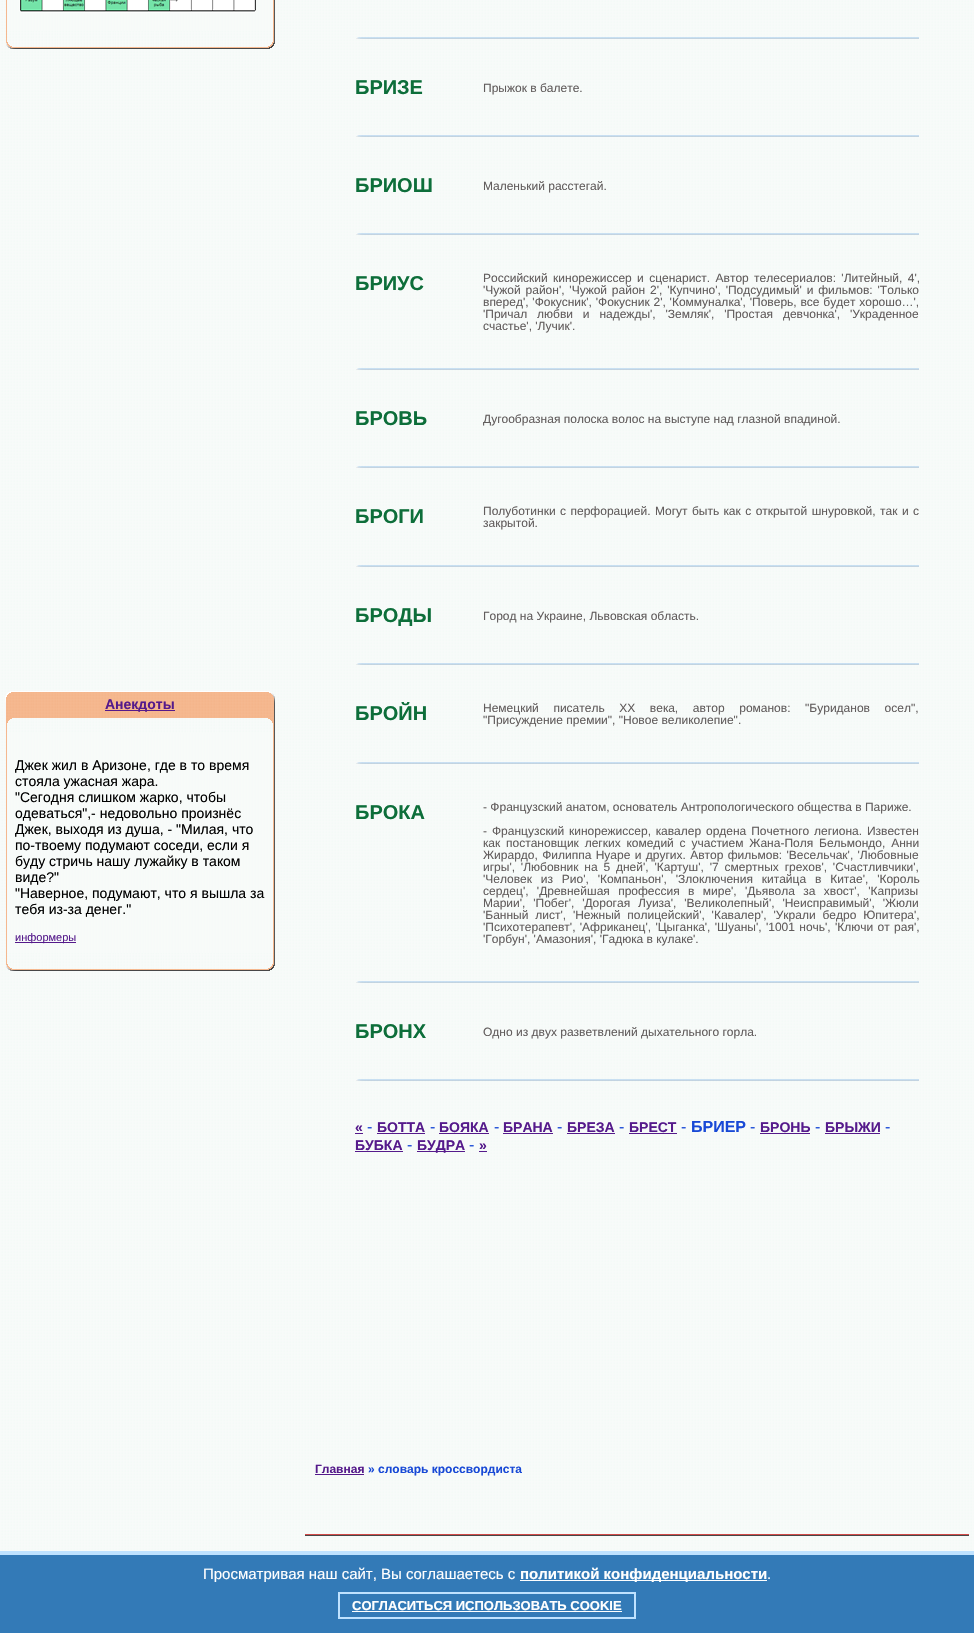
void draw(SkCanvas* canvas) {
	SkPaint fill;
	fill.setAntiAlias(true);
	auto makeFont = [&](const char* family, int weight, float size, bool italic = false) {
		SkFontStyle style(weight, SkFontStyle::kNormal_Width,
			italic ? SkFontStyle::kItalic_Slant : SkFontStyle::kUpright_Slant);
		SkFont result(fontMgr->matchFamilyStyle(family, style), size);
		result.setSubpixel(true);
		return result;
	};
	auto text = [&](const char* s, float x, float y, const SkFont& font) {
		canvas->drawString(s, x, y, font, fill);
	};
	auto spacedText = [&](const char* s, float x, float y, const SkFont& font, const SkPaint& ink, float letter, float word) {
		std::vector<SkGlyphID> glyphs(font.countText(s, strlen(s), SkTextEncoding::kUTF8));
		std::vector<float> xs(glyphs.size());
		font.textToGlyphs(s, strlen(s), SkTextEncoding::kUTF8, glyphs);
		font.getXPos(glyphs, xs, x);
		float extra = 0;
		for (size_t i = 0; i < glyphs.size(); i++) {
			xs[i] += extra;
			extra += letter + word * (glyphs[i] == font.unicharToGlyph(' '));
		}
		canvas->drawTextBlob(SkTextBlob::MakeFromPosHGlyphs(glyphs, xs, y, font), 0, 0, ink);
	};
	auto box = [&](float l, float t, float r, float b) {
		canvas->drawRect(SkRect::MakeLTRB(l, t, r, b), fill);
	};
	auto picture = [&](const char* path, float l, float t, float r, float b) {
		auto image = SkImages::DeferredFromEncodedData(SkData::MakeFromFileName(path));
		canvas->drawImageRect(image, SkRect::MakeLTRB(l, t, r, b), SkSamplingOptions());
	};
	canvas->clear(0xFFFFFFFF);
	picture("image0.png", 0, 0, 974, 1551);
	picture("image1.png", 6, 0, 275, 31);
	picture("image2.png", 19, 0, 256, 13);
	picture("image3.png", 6, 31, 275, 49);
	picture("image4.png", 5, 691, 275, 733);
	fill.setColor(0xFF551A8B);
	box(105, 710, 175, 711);
	picture("image5.png", 6, 733, 275, 953);
	box(15, 942, 76, 943);
	picture("image6.png", 6, 953, 275, 971);
	picture("image7.png", 356, 37, 919, 39);
	picture("image8.png", 356, 135, 919, 137);
	picture("image9.png", 356, 233, 919, 235);
	picture("image9.png", 356, 368, 919, 370);
	picture("image7.png", 356, 466, 919, 468);
	picture("image7.png", 356, 565, 919, 567);
	picture("image8.png", 356, 663, 919, 665);
	picture("image8.png", 356, 762, 919, 764);
	picture("image8.png", 356, 981, 919, 983);
	picture("image9.png", 356, 1079, 919, 1081);
	box(355, 1133, 363, 1134);
	box(377, 1133, 425, 1134);
	box(439, 1133, 489, 1134);
	box(503, 1133, 553, 1134);
	box(567, 1133, 615, 1134);
	box(629, 1133, 677, 1134);
	box(760, 1133, 810, 1134);
	box(825, 1133, 880, 1134);
	box(355, 1151, 403, 1152);
	box(417, 1151, 465, 1152);
	box(479, 1151, 487, 1152);
	box(315, 1474, 364, 1475);
	picture("image10.png", 305, 1534, 969, 1536);
	fill.setColor(0xFF337AB7);
	box(0, 1555, 974, 1633);
	fill.setColor(0xFFBFE2FF);
	box(0, 1551, 974, 1555);
	fill.setColor(0xFFFFFFFF);
	box(520, 1580, 767, 1581);
	fill.setStyle(SkPaint::kStroke_Style);
	fill.setStrokeWidth(2);
	fill.setColor(0xFFBFE2FF);
	canvas->drawRect(SkRect::MakeLTRB(339, 1593, 635, 1618), fill);
	fill.setStyle(SkPaint::kFill_Style);
	fill.setColor(0xFFFFFFFF);
	box(352, 1611, 622, 1612);
	auto font1 = makeFont("Liberation Sans", 700, 14);
	fill.setColor(0xFF551A8B);
	text("Анекдоты", 105, 709, font1);
	auto font2 = makeFont("Liberation Sans", 400, 14);
	fill.setColor(0xFF000000);
	text("Джек жил в Аризоне, где в то время", 15, 770, font2);
	text("стояла ужасная жара.", 15, 786, font2);
	text("\"Сегодня слишком жарко, чтобы", 15, 802, font2);
	text("одеваться\",- недовольно произнёс", 15, 818, font2);
	text("Джек, выходя из душа, - \"Милая, что", 15, 834, font2);
	text("по-твоему подумают соседи, если я", 15, 850, font2);
	text("буду стричь нашу лужайку в таком", 15, 866, font2);
	text("виде?\"", 15, 882, font2);
	text("\"Наверное, подумают, что я вышла за", 15, 898, font2);
	text("тебя из-за денег.\"", 15, 914, font2);
	auto font3 = makeFont("Liberation Sans", 400, 11);
	fill.setColor(0xFF551A8B);
	text("информеры", 15, 941, font3);
	auto font4 = makeFont("Liberation Sans", 700, 20);
	fill.setColor(0xFF0D6E3A);
	text("БРИЗЕ", 355, 94, font4);
	auto font5 = makeFont("Liberation Sans", 400, 12);
	fill.setColor(0xFF625D5D);
	text("Прыжок в балете.", 483, 92, font5);
	fill.setColor(0xFF0D6E3A);
	text("БРИОШ", 355, 192, font4);
	fill.setColor(0xFF625D5D);
	text("Маленький расстегай.", 483, 190, font5);
	fill.setColor(0xFF0D6E3A);
	text("БРИУС", 355, 290, font4);
	fill.setColor(0xFF625D5D);
	spacedText("Российский кинорежиссер и сценарист. Автор телесериалов: 'Литейный, 4',", 483, 282, font5, fill, 0, 2);
	spacedText("'Чужой район', 'Чужой район 2', 'Купчино', 'Подсудимый' и фильмов: 'Только", 483, 294, font5, fill, 0, 1.5f);
	spacedText("вперед', 'Фокусник', 'Фокусник 2', 'Коммуналка', 'Поверь, все будет хорошо…',", 483, 306, font5, fill, 0, 0.5f);
	spacedText("'Причал любви и надежды', 'Земляк', 'Простая девчонка', 'Украденное", 483, 318, font5, fill, 0, 6.5f);
	text("счастье', 'Лучик'.", 483, 330, font5);
	fill.setColor(0xFF0D6E3A);
	text("БРОВЬ", 355, 425, font4);
	fill.setColor(0xFF625D5D);
	text("Дугообразная полоска волос на выступе над глазной впадиной.", 483, 423, font5);
	fill.setColor(0xFF0D6E3A);
	text("БРОГИ", 355, 523, font4);
	fill.setColor(0xFF625D5D);
	spacedText("Полуботинки с перфорацией. Могут быть как с открытой шнуровкой, так и с", 483, 515, font5, fill, 0, 1.1f);
	text("закрытой.", 483, 527, font5);
	fill.setColor(0xFF0D6E3A);
	text("БРОДЫ", 355, 622, font4);
	fill.setColor(0xFF625D5D);
	text("Город на Украине, Львовская область.", 483, 620, font5);
	fill.setColor(0xFF0D6E3A);
	text("БРОЙН", 355, 720, font4);
	fill.setColor(0xFF625D5D);
	spacedText("Немецкий писатель ХХ века, автор романов: \"Буриданов осел\",", 483, 712, font5, fill, 0, 11.25f);
	text("\"Присуждение премии\", \"Новое великолепие\".", 483, 724, font5);
	fill.setColor(0xFF0D6E3A);
	text("БРОКА", 355, 819, font4);
	fill.setColor(0xFF625D5D);
	text("- Французский анатом, основатель Антропологического общества в Париже.", 483, 811, font5);
	text("-", 483, 835, font5);
	spacedText("Французский кинорежиссер, кавалер ордена Почетного легиона. Известен", 492, 835, font5, fill, 0, 1.5f);
	spacedText("как постановщик легких комедий с участием Жана-Поля Бельмондо, Анни", 483, 847, font5, fill, 0, 2.5f);
	spacedText("Жирардо, Филиппа Нуаре и других. Автор фильмов: 'Весельчак', 'Любовные", 483, 859, font5, fill, 0, 1);
	spacedText("игры', 'Любовник на 5 дней', 'Картуш', '7 смертных грехов', 'Счастливчики',", 483, 871, font5, fill, 0, 2.5f);
	spacedText("'Человек из Рио', 'Компаньон', 'Злоключения китайца в Китае', 'Король", 483, 883, font5, fill, 0, 5.5f);
	spacedText("сердец', 'Древнейшая профессия в мире', 'Дьявола за хвост', 'Капризы", 483, 895, font5, fill, 0, 5);
	spacedText("Марии', 'Побег', 'Дорогая Луиза', 'Великолепный', 'Неисправимый', 'Жюли", 483, 907, font5, fill, 0, 4.5f);
	spacedText("'Банный лист', 'Нежный полицейский', 'Кавалер', 'Украли бедро Юпитера',", 483, 919, font5, fill, 0, 3.5f);
	spacedText("'Психотерапевт', 'Африканец', 'Цыганка', 'Шуаны', '1001 ночь', 'Ключи от рая',", 483, 931, font5, fill, 0, 1);
	text("'Горбун', 'Амазония', 'Гадюка в кулаке'.", 483, 943, font5);
	fill.setColor(0xFF0D6E3A);
	text("БРОНХ", 355, 1038, font4);
	fill.setColor(0xFF625D5D);
	text("Одно из двух разветвлений дыхательного горла.", 483, 1036, font5);
	fill.setColor(0xFF551A8B);
	text("«", 355, 1132, font1);
	auto font6 = makeFont("Liberation Sans", 400, 16);
	fill.setColor(0xFF1849D6);
	text("-", 367, 1132, font6);
	fill.setColor(0xFF551A8B);
	text("БОТТА", 377, 1132, font1);
	fill.setColor(0xFF1849D6);
	text("-", 430, 1132, font6);
	fill.setColor(0xFF551A8B);
	text("БОЯКА", 439, 1132, font1);
	fill.setColor(0xFF1849D6);
	text("-", 494, 1132, font6);
	fill.setColor(0xFF551A8B);
	text("БРАНА", 503, 1132, font1);
	fill.setColor(0xFF1849D6);
	text("-", 557, 1132, font6);
	fill.setColor(0xFF551A8B);
	text("БРЕЗА", 567, 1132, font1);
	fill.setColor(0xFF1849D6);
	text("-", 619, 1132, font6);
	fill.setColor(0xFF551A8B);
	text("БРЕСТ", 629, 1132, font1);
	fill.setColor(0xFF1849D6);
	text("-", 681, 1132, font6);
	auto font7 = makeFont("Liberation Sans", 700, 16);
	text("БРИЕР", 691, 1132, font7);
	text("-", 750, 1132, font6);
	fill.setColor(0xFF551A8B);
	text("БРОНЬ", 760, 1132, font1);
	fill.setColor(0xFF1849D6);
	text("-", 815, 1132, font6);
	fill.setColor(0xFF551A8B);
	text("БРЫЖИ", 825, 1132, font1);
	fill.setColor(0xFF1849D6);
	text("-", 885, 1132, font6);
	fill.setColor(0xFF551A8B);
	text("БУБКА", 355, 1150, font1);
	fill.setColor(0xFF1849D6);
	text("-", 407, 1150, font6);
	fill.setColor(0xFF551A8B);
	text("БУДРА", 417, 1150, font1);
	fill.setColor(0xFF1849D6);
	text("-", 469, 1150, font6);
	fill.setColor(0xFF551A8B);
	text("»", 479, 1150, font1);
	auto font8 = makeFont("Liberation Sans", 700, 12);
	text("Главная", 315, 1473, font8);
	fill.setColor(0xFF1849D6);
	text("» словарь кроссвордиста", 368, 1473, font8);
	auto font9 = makeFont("Liberation Sans", 400, 15);
	fill.setColor(0xFFFFFFFF);
	text("Просматривая наш сайт, Вы соглашаетесь с", 203, 1579, font9);
	auto font10 = makeFont("Liberation Sans", 700, 15);
	text("политикой конфиденциальности", 520, 1579, font10);
	text(".", 767, 1579, font9);
	auto font11 = makeFont("Liberation Sans", 700, 13);
	text("СОГЛАСИТЬСЯ ИСПОЛЬЗОВАТЬ COOKIE", 352, 1610, font11);
}
